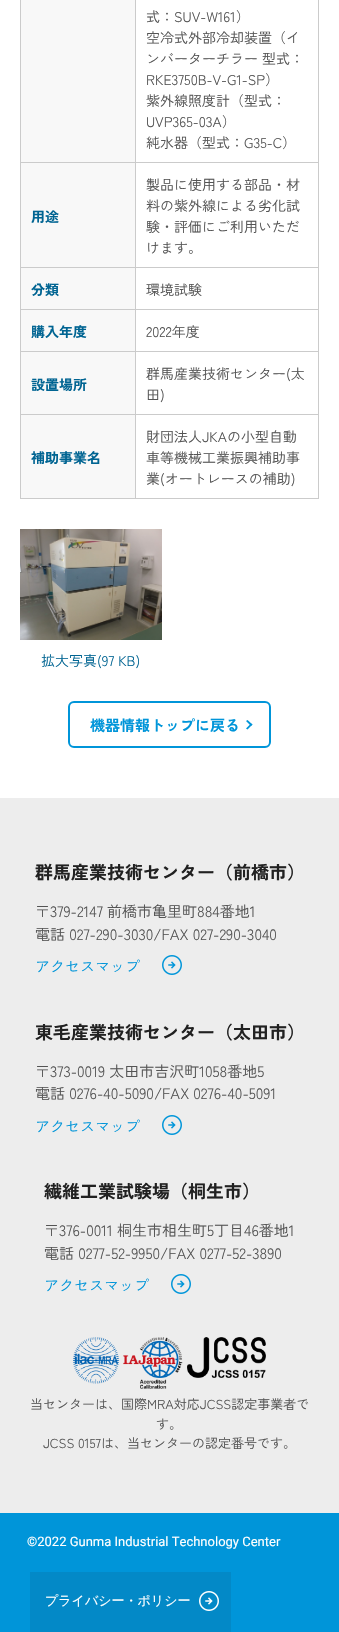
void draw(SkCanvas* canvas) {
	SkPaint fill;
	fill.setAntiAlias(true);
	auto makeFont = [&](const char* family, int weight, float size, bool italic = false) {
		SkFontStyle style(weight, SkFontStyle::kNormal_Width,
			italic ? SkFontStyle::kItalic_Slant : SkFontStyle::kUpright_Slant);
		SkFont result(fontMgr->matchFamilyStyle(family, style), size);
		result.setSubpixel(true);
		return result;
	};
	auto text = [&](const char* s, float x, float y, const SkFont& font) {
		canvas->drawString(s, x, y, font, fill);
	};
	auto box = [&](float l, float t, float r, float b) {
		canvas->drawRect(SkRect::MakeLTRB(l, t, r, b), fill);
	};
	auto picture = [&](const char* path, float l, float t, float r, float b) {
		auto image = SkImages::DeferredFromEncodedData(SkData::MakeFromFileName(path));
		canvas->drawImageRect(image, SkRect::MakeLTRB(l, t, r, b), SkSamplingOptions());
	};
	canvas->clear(0xFFFFFFFF);
	fill.setColor(0xFFCBCBCB);
	box(318, 0, 319, 499);
	box(20, 498, 319, 499);
	box(20, 0, 21, 499);
	fill.setColor(0xFFF8F8F8);
	box(21, 0, 135, 162);
	fill.setColor(0xFFCBCBCB);
	box(135, 162, 319, 163);
	box(135, 267, 319, 268);
	box(135, 309, 319, 310);
	box(135, 351, 319, 352);
	box(135, 414, 319, 415);
	box(135, 414, 136, 499);
	box(20, 414, 136, 415);
	box(135, 351, 136, 415);
	box(20, 351, 136, 352);
	box(135, 309, 136, 352);
	box(20, 309, 136, 310);
	box(135, 267, 136, 310);
	box(20, 267, 136, 268);
	box(135, 162, 136, 268);
	box(20, 162, 136, 163);
	box(135, 0, 136, 163);
	fill.setColor(0xFFF8F8F8);
	box(21, 163, 135, 267);
	box(21, 268, 135, 309);
	box(21, 310, 135, 351);
	box(21, 352, 135, 414);
	box(21, 415, 135, 498);
	picture("image0.png", 20, 529, 162, 640);
	fill.setStyle(SkPaint::kStroke_Style);
	fill.setStrokeWidth(2);
	fill.setColor(0xFF0095D9);
	canvas->drawRoundRect(SkRect::MakeLTRB(69, 702, 270, 747), 5, 5, fill);
	fill.setStyle(SkPaint::kFill_Style);
	canvas->drawPath(SkPathBuilder().moveTo(247.5f, 720).lineTo(252.5f, 724.5f).lineTo(251, 726).lineTo(246, 721).close().detach(), fill);
	canvas->drawPath(SkPathBuilder().moveTo(251, 723.5f).lineTo(252.5f, 724.5f).lineTo(247.5f, 729.5f).lineTo(246, 728.5f).close().detach(), fill);
	box(0, 1513, 339, 1632);
	fill.setColor(0xFFEDEDED);
	box(0, 798, 339, 1513);
	picture("image1.png", 162, 955, 182, 975);
	picture("image1.png", 162, 1115, 182, 1135);
	picture("image1.png", 171, 1274, 191, 1294);
	picture("image2.png", 73, 1337, 266, 1389);
	fill.setColor(0xFF0389C7);
	box(30, 1572, 231, 1632);
	picture("image3.png", 199, 1591, 219, 1611);
	auto font1 = makeFont("Zen Kaku Gothic New", 400, 14);
	fill.setColor(0xFF545454);
	text("式：SUV-W161）", 146, 22, font1);
	text("空冷式外部冷却装置（イ", 146, 43, font1);
	text("ンバーターチラー 型式：", 146, 64, font1);
	text("RKE3750B-V-G1-SP）", 146, 85, font1);
	text("紫外線照度計（型式：", 146, 106, font1);
	text("UVP365-03A）", 146, 127, font1);
	text("純水器（型式：G35-C）", 146, 148, font1);
	auto font2 = makeFont("Zen Kaku Gothic New", 700, 14);
	fill.setColor(0xFF006492);
	text("用途", 31, 222, font2);
	fill.setColor(0xFF545454);
	text("製品に使用する部品・材", 146, 190, font1);
	text("料の紫外線による劣化試", 146, 211, font1);
	text("験・評価にご利用いただ", 146, 232, font1);
	text("けます。", 146, 253, font1);
	fill.setColor(0xFF006492);
	text("分類", 31, 295, font2);
	fill.setColor(0xFF545454);
	text("環境試験", 146, 295, font1);
	fill.setColor(0xFF006492);
	text("購入年度", 31, 337, font2);
	fill.setColor(0xFF545454);
	text("2022年度", 146, 337, font1);
	fill.setColor(0xFF006492);
	text("設置場所", 31, 390, font2);
	fill.setColor(0xFF545454);
	text("群馬産業技術センター(太", 146, 379, font1);
	text("田)", 146, 400, font1);
	fill.setColor(0xFF006492);
	text("補助事業名", 31, 463, font2);
	fill.setColor(0xFF545454);
	text("財団法人JKAの小型自動", 146, 442, font1);
	text("車等機械工業振興補助事", 146, 463, font1);
	text("業(オートレースの補助)", 146, 484, font1);
	fill.setColor(0xFF006492);
	text("拡大写真(97 KB)", 41, 666, font1);
	auto font3 = makeFont("Zen Kaku Gothic New", 700, 15);
	fill.setColor(0xFF0095D9);
	text("機器情報トップに戻る", 90, 731, font3);
	auto font4 = makeFont("Zen Kaku Gothic New", 700, 18);
	fill.setColor(0xFF212121);
	text("群馬産業技術センター（前橋市）", 35, 879, font4);
	auto font5 = makeFont("Zen Kaku Gothic New", 400, 15);
	fill.setColor(0xFF545454);
	text("〒379-2147 前橋市亀里町884番地1", 35, 917, font5);
	text("電話 027-290-3030/FAX 027-290-3040", 35, 940, font5);
	fill.setColor(0xFF0095D9);
	text("アクセスマップ", 35, 972, font5);
	fill.setColor(0xFF212121);
	text("東毛産業技術センター（太田市）", 35, 1039, font4);
	fill.setColor(0xFF545454);
	text("〒373-0019 太田市吉沢町1058番地5", 35, 1077, font5);
	text("電話 0276-40-5090/FAX 0276-40-5091", 35, 1099, font5);
	fill.setColor(0xFF0095D9);
	text("アクセスマップ", 35, 1132, font5);
	fill.setColor(0xFF212121);
	text("繊維工業試験場（桐生市）", 44, 1198, font4);
	fill.setColor(0xFF545454);
	text("〒376-0011 桐生市相生町5丁目46番地1", 44, 1236, font5);
	text("電話 0277-52-9950/FAX 0277-52-3890", 44, 1259, font5);
	fill.setColor(0xFF0095D9);
	text("アクセスマップ", 44, 1291, font5);
	auto font6 = makeFont("Zen Kaku Gothic New", 400, 13);
	fill.setColor(0xFF545454);
	text("当センターは、国際MRA対応JCSS認定事業者で", 30, 1409, font6);
	text("す。", 156, 1429, font6);
	text("JCSS 0157は、当センターの認定番号です。", 43, 1448, font6);
	auto font7 = makeFont("Roboto", 400, 13);
	fill.setColor(0xFFFFFFFF);
	text("©2022 Gunma Industrial Technology Center", 27, 1546, font7);
	auto font8 = makeFont("WenQuanYi Zen Hei", 500, 13);
	text("プライバシー・ポリシー", 45, 1605, font8);
}
